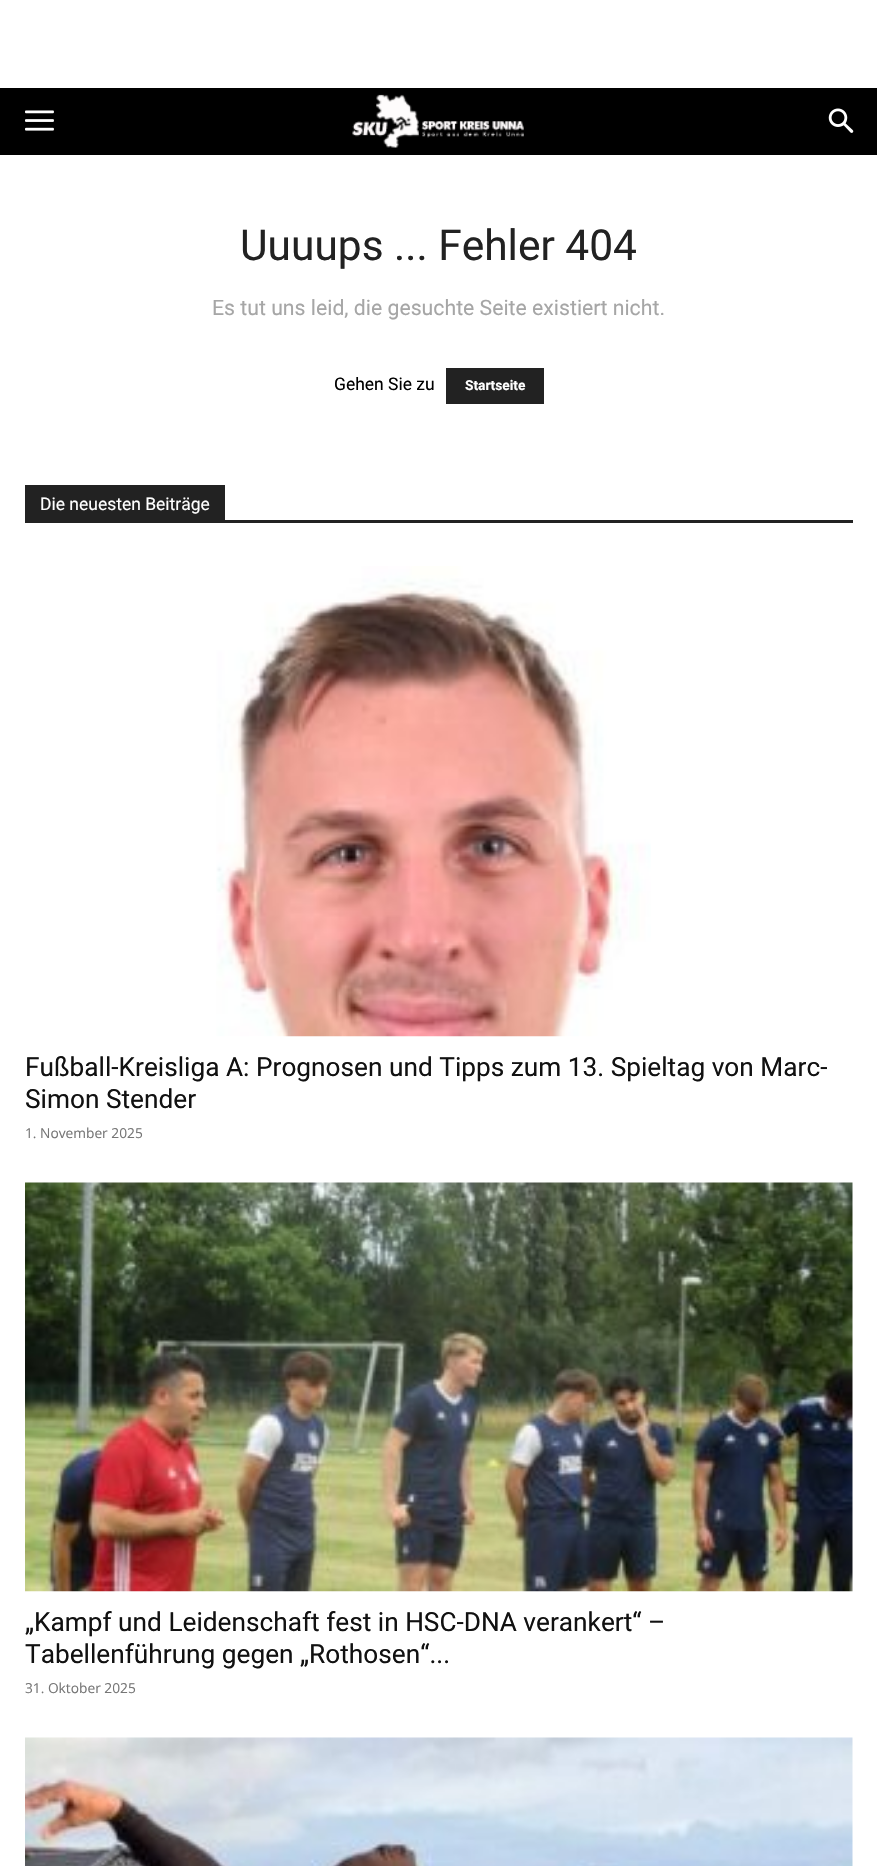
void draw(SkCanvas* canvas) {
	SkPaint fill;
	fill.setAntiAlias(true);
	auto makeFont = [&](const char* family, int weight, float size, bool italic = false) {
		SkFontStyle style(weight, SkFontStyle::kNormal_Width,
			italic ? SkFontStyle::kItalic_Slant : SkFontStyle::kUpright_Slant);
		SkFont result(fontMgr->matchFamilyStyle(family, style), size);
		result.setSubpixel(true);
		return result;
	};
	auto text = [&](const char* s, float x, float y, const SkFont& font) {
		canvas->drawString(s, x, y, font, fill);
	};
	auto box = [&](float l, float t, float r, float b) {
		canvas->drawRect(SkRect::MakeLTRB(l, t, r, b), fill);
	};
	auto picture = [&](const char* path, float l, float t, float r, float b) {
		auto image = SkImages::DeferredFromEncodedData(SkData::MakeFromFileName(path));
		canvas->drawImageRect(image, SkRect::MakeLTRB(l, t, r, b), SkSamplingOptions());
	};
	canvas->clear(0xFFFFFFFF);
	fill.setColor(0xFF000000);
	box(0, 88, 877, 155);
	picture("image0.png", 25, 110, 54, 131);
	picture("image1.png", 352, 94, 524, 148);
	picture("image2.png", 828, 108, 854, 133);
	fill.setColor(0xFF222222);
	box(446, 368, 544, 404);
	box(25, 520, 853, 523);
	box(25, 485, 225, 520);
	picture("image3.png", 216, 566, 651, 1037);
	picture("image4.png", 25, 1182, 853, 1592);
	picture("image5.png", 25, 1737, 853, 1866);
	auto font1 = makeFont("Roboto", 400, 42.5f);
	text("Uuuups ... Fehler 404", 240, 260, font1);
	auto font2 = makeFont("Roboto", 400, 21.25f);
	fill.setColor(0xFFA6A6A6);
	text("Es tut uns leid, die gesuchte Seite existiert nicht.", 212, 315, font2);
	auto font3 = makeFont("Roboto", 400, 17.5f);
	fill.setColor(0xFF000000);
	text("Gehen Sie zu", 334, 390, font3);
	auto font4 = makeFont("Roboto", 700, 13.75f);
	fill.setColor(0xFFFFFFFF);
	text("Startseite", 465, 390, font4);
	text("Die neuesten Beiträge", 40, 510, font3);
	auto font5 = makeFont("Roboto", 400, 26.25f);
	fill.setColor(0xFF111111);
	text("Fußball-Kreisliga A: Prognosen und Tipps zum 13. Spieltag von Marc-", 25, 1076, font5);
	text("Simon Stender", 25, 1108, font5);
	auto font6 = makeFont("Open Sans", 400, 13.75f);
	fill.setColor(0xFF767676);
	text("1. November 2025", 25, 1138, font6);
	fill.setColor(0xFF111111);
	text("„Kampf und Leidenschaft fest in HSC-DNA verankert“ –", 25, 1631, font5);
	text("Tabellenführung gegen „Rothosen“...", 25, 1663, font5);
	fill.setColor(0xFF767676);
	text("31. Oktober 2025", 25, 1693, font6);
}
